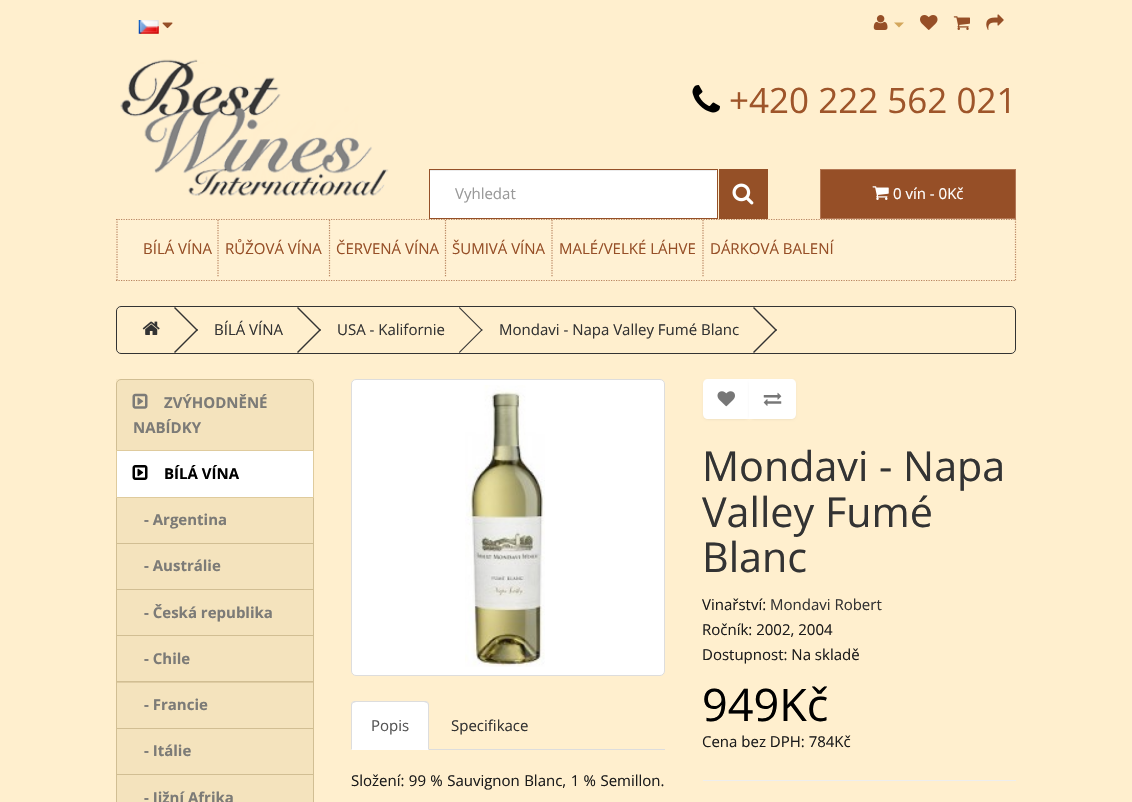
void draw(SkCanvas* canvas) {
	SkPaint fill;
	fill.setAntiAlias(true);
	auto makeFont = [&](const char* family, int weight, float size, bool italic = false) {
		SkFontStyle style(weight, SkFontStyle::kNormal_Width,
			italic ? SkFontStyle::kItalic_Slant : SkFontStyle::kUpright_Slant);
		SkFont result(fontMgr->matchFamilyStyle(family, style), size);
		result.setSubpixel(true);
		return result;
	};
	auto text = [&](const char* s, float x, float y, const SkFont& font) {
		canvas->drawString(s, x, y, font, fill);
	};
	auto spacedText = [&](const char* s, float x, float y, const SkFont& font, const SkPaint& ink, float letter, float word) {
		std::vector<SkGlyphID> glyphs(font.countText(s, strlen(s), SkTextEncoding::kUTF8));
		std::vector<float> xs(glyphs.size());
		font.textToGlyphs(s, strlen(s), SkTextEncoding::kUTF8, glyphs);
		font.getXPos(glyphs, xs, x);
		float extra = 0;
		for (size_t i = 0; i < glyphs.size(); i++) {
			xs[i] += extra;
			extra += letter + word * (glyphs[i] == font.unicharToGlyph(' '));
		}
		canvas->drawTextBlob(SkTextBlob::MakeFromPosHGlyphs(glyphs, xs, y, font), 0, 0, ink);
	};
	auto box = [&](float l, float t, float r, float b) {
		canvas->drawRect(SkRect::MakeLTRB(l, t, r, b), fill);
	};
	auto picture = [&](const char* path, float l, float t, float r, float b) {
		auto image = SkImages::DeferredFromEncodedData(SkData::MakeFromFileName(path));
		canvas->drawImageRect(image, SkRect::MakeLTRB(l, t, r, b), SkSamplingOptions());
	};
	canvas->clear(0xFFFFEFCE);
	picture("image0.png", 138, 20, 159, 34);
	picture("image1.png", 162, 22, 173, 29);
	picture("image2.png", 873, 15, 888, 30);
	fill.setColor(0xFFD4A75C);
	canvas->drawPath(SkPathBuilder().moveTo(894, 22.5f).lineTo(904, 22.5f).lineTo(899, 27.5f).close().detach(), fill);
	picture("image3.png", 920, 15, 938, 30);
	picture("image4.png", 953, 16, 970, 30);
	picture("image5.png", 986, 14, 1004, 30);
	picture("image6.png", 120, 59, 389, 196);
	picture("image7.png", 692, 85, 720, 113);
	fill.setColor(0xFFFFFFFF);
	box(430, 170, 717, 218);
	fill.setColor(0xFFECECEC);
	box(430, 170, 716, 171);
	fill.setColor(0xFF964F27);
	canvas->drawRect(SkRect::MakeLTRB(820.5f, 169.5f, 1015.5f, 218.5f), fill);
	fill.setStyle(SkPaint::kStroke_Style);
	fill.setStrokeWidth(1);
	fill.setColor(0xFFB37754);
	canvas->drawRect(SkRect::MakeLTRB(820.5f, 169.5f, 1015.5f, 218.5f), fill);
	fill.setStyle(SkPaint::kFill_Style);
	fill.setColor(0xFFFFF1D3);
	box(116, 219, 1016, 281);
	fill.setStyle(SkPaint::kStroke_Style);
	fill.setStrokeWidth(1.2f);
	fill.setColor(0xFFBA8560);
	fill.setPathEffect(SkDashPathEffect::Make({{1.25f, 1.25f}}, 0));
	canvas->drawPath(SkPathBuilder().moveTo(116, 219.5f).lineTo(1016, 219.5f).detach(), fill);
	fill.setPathEffect(nullptr);
	fill.setStrokeWidth(1);
	fill.setColor(0xFF955027);
	canvas->drawRect(SkRect::MakeLTRB(429.5f, 169.5f, 717.5f, 218.5f), fill);
	fill.setStyle(SkPaint::kFill_Style);
	box(719, 169, 768, 219);
	picture("image8.png", 732, 183, 754, 205);
	picture("image9.png", 872, 186, 889, 200);
	fill.setStyle(SkPaint::kStroke_Style);
	fill.setStrokeWidth(1.2f);
	fill.setColor(0xFFBA8560);
	fill.setPathEffect(SkDashPathEffect::Make({{1.25f, 1.25f}}, 0));
	canvas->drawPath(SkPathBuilder().moveTo(1015.5f, 219).lineTo(1015.5f, 281).detach(), fill);
	fill.setPathEffect(nullptr);
	fill.setPathEffect(SkDashPathEffect::Make({{1.25f, 1.25f}}, 0));
	canvas->drawPath(SkPathBuilder().moveTo(116, 280.5f).lineTo(1016, 280.5f).detach(), fill);
	fill.setPathEffect(nullptr);
	fill.setPathEffect(SkDashPathEffect::Make({{1.25f, 1.25f}}, 0));
	canvas->drawPath(SkPathBuilder().moveTo(117, 219).lineTo(117, 281).detach(), fill);
	fill.setPathEffect(nullptr);
	fill.setPathEffect(SkDashPathEffect::Make({{1.25f, 1.25f}}, 0));
	canvas->drawPath(SkPathBuilder().moveTo(218, 220).lineTo(218, 277.5f).detach(), fill);
	fill.setPathEffect(nullptr);
	fill.setPathEffect(SkDashPathEffect::Make({{1.25f, 1.25f}}, 0));
	canvas->drawPath(SkPathBuilder().moveTo(329.5f, 220).lineTo(329.5f, 277.5f).detach(), fill);
	fill.setPathEffect(nullptr);
	fill.setPathEffect(SkDashPathEffect::Make({{1.25f, 1.25f}}, 0));
	canvas->drawPath(SkPathBuilder().moveTo(445.5f, 220).lineTo(445.5f, 277.5f).detach(), fill);
	fill.setPathEffect(nullptr);
	fill.setPathEffect(SkDashPathEffect::Make({{1.25f, 1.25f}}, 0));
	canvas->drawPath(SkPathBuilder().moveTo(552, 220).lineTo(552, 277.5f).detach(), fill);
	fill.setPathEffect(nullptr);
	fill.setPathEffect(SkDashPathEffect::Make({{1.25f, 1.25f}}, 0));
	canvas->drawPath(SkPathBuilder().moveTo(703, 220).lineTo(703, 277.5f).detach(), fill);
	fill.setPathEffect(nullptr);
	fill.setStrokeWidth(1);
	fill.setColor(0xFF333333);
	canvas->drawRoundRect(SkRect::MakeLTRB(116.5f, 306.5f, 1015.5f, 353.5f), 4.5f, 4.5f, fill);
	picture("image10.png", 142, 321, 160, 335);
	fill.setStyle(SkPaint::kFill_Style);
	canvas->drawPath(SkPathBuilder().moveTo(174, 308).lineTo(175, 307).lineTo(198, 330).lineTo(197, 331).close().detach(), fill);
	canvas->drawPath(SkPathBuilder().moveTo(174, 352).lineTo(197, 329).lineTo(198, 330).lineTo(175, 353).close().detach(), fill);
	canvas->drawPath(SkPathBuilder().moveTo(297, 308).lineTo(298, 307).lineTo(321, 330).lineTo(320, 331).close().detach(), fill);
	canvas->drawPath(SkPathBuilder().moveTo(297, 352).lineTo(320, 329).lineTo(321, 330).lineTo(298, 353).close().detach(), fill);
	canvas->drawPath(SkPathBuilder().moveTo(459, 308).lineTo(459.5f, 307).lineTo(482.5f, 330).lineTo(482, 331).close().detach(), fill);
	canvas->drawPath(SkPathBuilder().moveTo(459, 352).lineTo(482, 329).lineTo(482.5f, 330).lineTo(459.5f, 353).close().detach(), fill);
	canvas->drawPath(SkPathBuilder().moveTo(753, 308).lineTo(754, 307).lineTo(777, 330).lineTo(776, 331).close().detach(), fill);
	canvas->drawPath(SkPathBuilder().moveTo(753, 352).lineTo(776, 329).lineTo(777, 330).lineTo(754, 353).close().detach(), fill);
	fill.setColor(0xFFF8E7C3);
	box(116, 379, 314, 802);
	fill.setColor(0xFFF4E3BD);
	canvas->drawPath(SkPathBuilder().moveTo(121, 379.5f).lineTo(309, 379.5f).cubicTo(311.5f, 379.5f, 313.5f, 381.5f, 313.5f, 384).lineTo(313.5f, 450.5f).lineTo(116.5f, 450.5f).lineTo(116.5f, 384).cubicTo(116.5f, 381.5f, 118.5f, 379.5f, 121, 379.5f).close().detach(), fill);
	fill.setStyle(SkPaint::kStroke_Style);
	fill.setColor(0xFFD1BE93);
	canvas->drawPath(SkPathBuilder().moveTo(121, 379.5f).lineTo(309, 379.5f).cubicTo(311.5f, 379.5f, 313.5f, 381.5f, 313.5f, 384).lineTo(313.5f, 450.5f).lineTo(116.5f, 450.5f).lineTo(116.5f, 384).cubicTo(116.5f, 381.5f, 118.5f, 379.5f, 121, 379.5f).close().detach(), fill);
	picture("image11.png", 132, 393, 148, 409);
	fill.setStyle(SkPaint::kFill_Style);
	fill.setColor(0xFFF4E3BD);
	box(117, 498, 313, 543);
	fill.setStyle(SkPaint::kStroke_Style);
	fill.setColor(0xFFD1BE93);
	canvas->drawRect(SkRect::MakeLTRB(116.5f, 496.5f, 313.5f, 543.5f), fill);
	fill.setStyle(SkPaint::kFill_Style);
	fill.setColor(0xFFFFFFFF);
	canvas->drawRect(SkRect::MakeLTRB(116.5f, 450.5f, 313.5f, 497.5f), fill);
	fill.setStyle(SkPaint::kStroke_Style);
	fill.setColor(0xFFDFCB9D);
	canvas->drawRect(SkRect::MakeLTRB(116.5f, 450.5f, 313.5f, 497.5f), fill);
	picture("image12.png", 132, 465, 148, 480);
	fill.setStyle(SkPaint::kFill_Style);
	fill.setColor(0x73F0DEB6);
	canvas->drawRect(SkRect::MakeLTRB(116.5f, 543.5f, 313.5f, 589.5f), fill);
	fill.setStyle(SkPaint::kStroke_Style);
	fill.setColor(0xFFD1BE93);
	canvas->drawRect(SkRect::MakeLTRB(116.5f, 543.5f, 313.5f, 589.5f), fill);
	fill.setStyle(SkPaint::kFill_Style);
	fill.setColor(0x73F0DEB6);
	canvas->drawRect(SkRect::MakeLTRB(116.5f, 589.5f, 313.5f, 635.5f), fill);
	fill.setStyle(SkPaint::kStroke_Style);
	fill.setColor(0xFFD1BE93);
	canvas->drawRect(SkRect::MakeLTRB(116.5f, 589.5f, 313.5f, 635.5f), fill);
	fill.setStyle(SkPaint::kFill_Style);
	fill.setColor(0x73F0DEB6);
	box(117, 636, 313, 681);
	fill.setStyle(SkPaint::kStroke_Style);
	fill.setColor(0xFFD1BE93);
	canvas->drawRect(SkRect::MakeLTRB(116.5f, 635.5f, 313.5f, 682.5f), fill);
	fill.setStyle(SkPaint::kFill_Style);
	fill.setColor(0x73F0DEB6);
	canvas->drawRect(SkRect::MakeLTRB(116.5f, 681.5f, 313.5f, 728.5f), fill);
	fill.setStyle(SkPaint::kStroke_Style);
	fill.setColor(0xFFD1BE93);
	canvas->drawRect(SkRect::MakeLTRB(116.5f, 681.5f, 313.5f, 728.5f), fill);
	fill.setStyle(SkPaint::kFill_Style);
	fill.setColor(0x73F0DEB6);
	canvas->drawRect(SkRect::MakeLTRB(116.5f, 728.5f, 313.5f, 774.5f), fill);
	fill.setStyle(SkPaint::kStroke_Style);
	fill.setColor(0xFFD1BE93);
	canvas->drawRect(SkRect::MakeLTRB(116.5f, 728.5f, 313.5f, 774.5f), fill);
	fill.setStyle(SkPaint::kFill_Style);
	fill.setColor(0x73F0DEB6);
	canvas->drawRect(SkRect::MakeLTRB(116.5f, 774.5f, 313.5f, 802.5f), fill);
	fill.setStyle(SkPaint::kStroke_Style);
	fill.setColor(0xFFD1BE93);
	canvas->drawRect(SkRect::MakeLTRB(116.5f, 774.5f, 313.5f, 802.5f), fill);
	fill.setStyle(SkPaint::kFill_Style);
	fill.setColor(0xFFFFFFFF);
	canvas->drawRoundRect(SkRect::MakeLTRB(351.5f, 379.5f, 664.5f, 675.5f), 4.5f, 4.5f, fill);
	fill.setStyle(SkPaint::kStroke_Style);
	fill.setColor(0xFFDDDDDD);
	canvas->drawRoundRect(SkRect::MakeLTRB(351.5f, 379.5f, 664.5f, 675.5f), 4.5f, 4.5f, fill);
	picture("image13.png", 465, 385, 545, 667);
	fill.setStyle(SkPaint::kFill_Style);
	box(429, 749, 665, 750);
	fill.setColor(0xFFFFFFFF);
	canvas->drawPath(SkPathBuilder().moveTo(356, 701).lineTo(424, 701).cubicTo(427, 701, 429, 703, 429, 706).lineTo(429, 750).lineTo(351, 750).lineTo(351, 706).cubicTo(351, 703, 353, 701, 356, 701).close().detach(), fill);
	fill.setColor(0xFFDDDDDD);
	canvas->drawPath(SkPathBuilder().moveTo(356, 702).lineTo(353, 703).lineTo(352, 702).lineTo(354, 701).lineTo(426, 701).lineTo(428, 702).lineTo(427, 703).lineTo(424, 702).close().detach(), fill);
	canvas->drawPath(SkPathBuilder().moveTo(429, 704).lineTo(429, 750).lineTo(428, 749).lineTo(428, 706).cubicTo(428, 705, 428, 704, 427, 703).lineTo(428, 702).close().detach(), fill);
	canvas->drawPath(SkPathBuilder().moveTo(351, 750).lineTo(351, 704).lineTo(352, 702).lineTo(353, 703).cubicTo(352, 704, 352, 705, 352, 706).lineTo(352, 749).close().detach(), fill);
	fill.setColor(0x0D000000);
	fill.setMaskFilter(SkMaskFilter::MakeBlur(kNormal_SkBlurStyle, 1));
	canvas->drawRoundRect(SkRect::MakeLTRB(703, 380, 750, 420), 5, 5, fill);
	fill.setMaskFilter(nullptr);
	fill.setColor(0xFFFFFFFF);
	canvas->drawPath(SkPathBuilder().moveTo(708, 379).lineTo(750, 379).lineTo(750, 419).lineTo(708, 419).cubicTo(705, 419, 703, 417, 703, 414).lineTo(703, 384).cubicTo(703, 381, 705, 379, 708, 379).close().detach(), fill);
	picture("image14.png", 717, 391, 735, 407);
	fill.setColor(0x0D000000);
	fill.setMaskFilter(SkMaskFilter::MakeBlur(kNormal_SkBlurStyle, 1));
	canvas->drawRoundRect(SkRect::MakeLTRB(749, 380, 796, 420), 5, 5, fill);
	fill.setMaskFilter(nullptr);
	fill.setColor(0xFFFFFFFF);
	canvas->drawPath(SkPathBuilder().moveTo(749, 379).lineTo(791, 379).cubicTo(794, 379, 796, 381, 796, 384).lineTo(796, 414).cubicTo(796, 417, 794, 419, 791, 419).lineTo(749, 419).close().detach(), fill);
	fill.setColor(0x33FFFFFF);
	canvas->drawPath(SkPathBuilder().moveTo(749, 380).lineTo(791, 380).cubicTo(794, 380, 796, 382, 796, 385).lineTo(796, 384).cubicTo(796, 381, 794, 379, 791, 379).lineTo(749, 379).close().detach(), fill);
	picture("image15.png", 763, 392, 782, 406);
	fill.setColor(0xFFEEEEEE);
	box(703, 780, 1016, 781);
	auto font1 = makeFont("Open Sans", 400, 35);
	fill.setColor(0xFF9E552A);
	text("+420 222 562 021", 729, 113, font1);
	auto font2 = makeFont("Open Sans", 400, 15);
	fill.setColor(0xFF999999);
	text("Vyhledat", 455, 199, font2);
	fill.setColor(0xFFFFFFFF);
	text("0 vín - 0Kč", 893, 199, font2);
	fill.setColor(0xFF964F27);
	text("BÍLÁ VÍNA", 143, 254, font2);
	text("RŮŽOVÁ VÍNA", 225, 254, font2);
	text("ČERVENÁ VÍNA", 336, 254, font2);
	text("ŠUMIVÁ VÍNA", 452, 254, font2);
	text("MALÉ/VELKÉ LÁHVE", 559, 254, font2);
	text("DÁRKOVÁ BALENÍ", 710, 254, font2);
	fill.setColor(0xFF333333);
	text("BÍLÁ VÍNA", 214, 335, font2);
	text("USA - Kalifornie", 337, 335, font2);
	text("Mondavi - Napa Valley Fumé Blanc", 499, 335, font2);
	auto font3 = makeFont("Open Sans", 700, 15);
	fill.setColor(0xFF7C7B77);
	text("ZVÝHODNĚNÉ", 164, 408, font3);
	text("NABÍDKY", 133, 433, font3);
	fill.setColor(0xFF000000);
	text("BÍLÁ VÍNA", 164, 479, font3);
	fill.setColor(0xFF7C7B77);
	text("- Argentina", 144, 525, font3);
	text("- Austrálie", 144, 571, font3);
	text("- Česká republika", 144, 618, font3);
	text("- Chile", 144, 664, font3);
	text("- Francie", 144, 710, font3);
	text("- Itálie", 144, 756, font3);
	text("- Jižní Afrika", 144, 803, font3);
	fill.setColor(0xFF555555);
	text("Popis", 371, 731, font2);
	fill.setColor(0xFF333333);
	text("Specifikace", 451, 731, font2);
	fill.setColor(0xFF1B1B1B);
	spacedText("Složení: 99 % Sauvignon Blanc, 1 % Semillon.", 351, 786, font2, fill, 0, 0.5f);
	auto font4 = makeFont("Open Sans", 400, 41.25f);
	fill.setColor(0xFF333333);
	text("Mondavi - Napa", 702, 481, font4);
	text("Valley Fumé", 702, 527, font4);
	text("Blanc", 702, 572, font4);
	fill.setColor(0xFF1B1B1B);
	text("Vinařství:", 702, 610, font2);
	fill.setColor(0xFF333333);
	text("Mondavi Robert", 770, 610, font2);
	fill.setColor(0xFF1B1B1B);
	text("Ročník: 2002, 2004", 702, 635, font2);
	text("Dostupnost: Na skladě", 702, 660, font2);
	auto font5 = makeFont("Open Sans", 400, 45);
	fill.setColor(0xFF000000);
	text("949Kč", 702, 721, font5);
	fill.setColor(0xFF1B1B1B);
	text("Cena bez DPH: 784Kč", 702, 747, font2);
}
